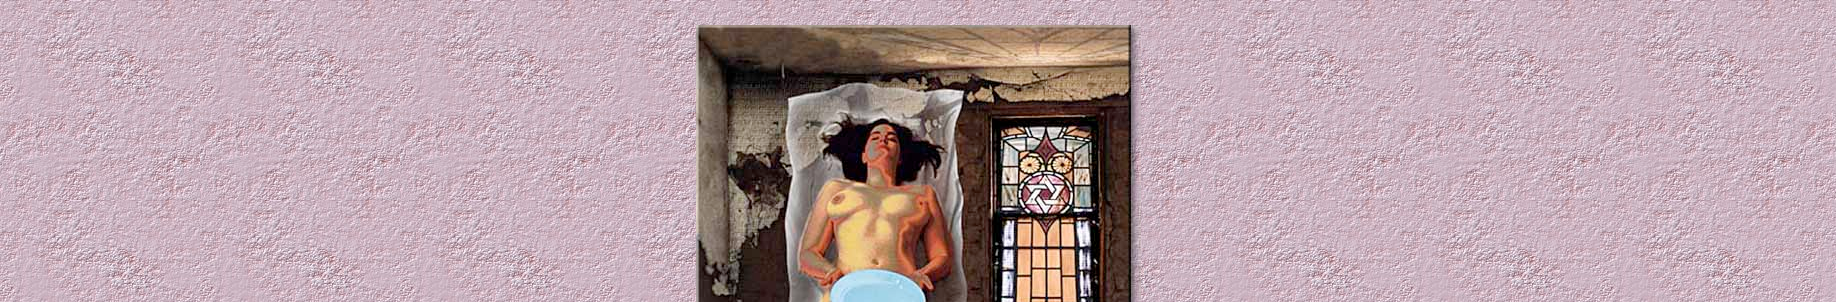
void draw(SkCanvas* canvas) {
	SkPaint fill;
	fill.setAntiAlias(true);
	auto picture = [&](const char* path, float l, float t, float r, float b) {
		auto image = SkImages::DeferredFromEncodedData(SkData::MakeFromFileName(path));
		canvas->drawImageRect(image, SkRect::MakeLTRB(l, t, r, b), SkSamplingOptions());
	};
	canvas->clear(0xFFFFFFFF);
	picture("image0.png", 0, 0, 1836, 302);
	picture("image1.png", 696, 25, 1141, 302);
}
